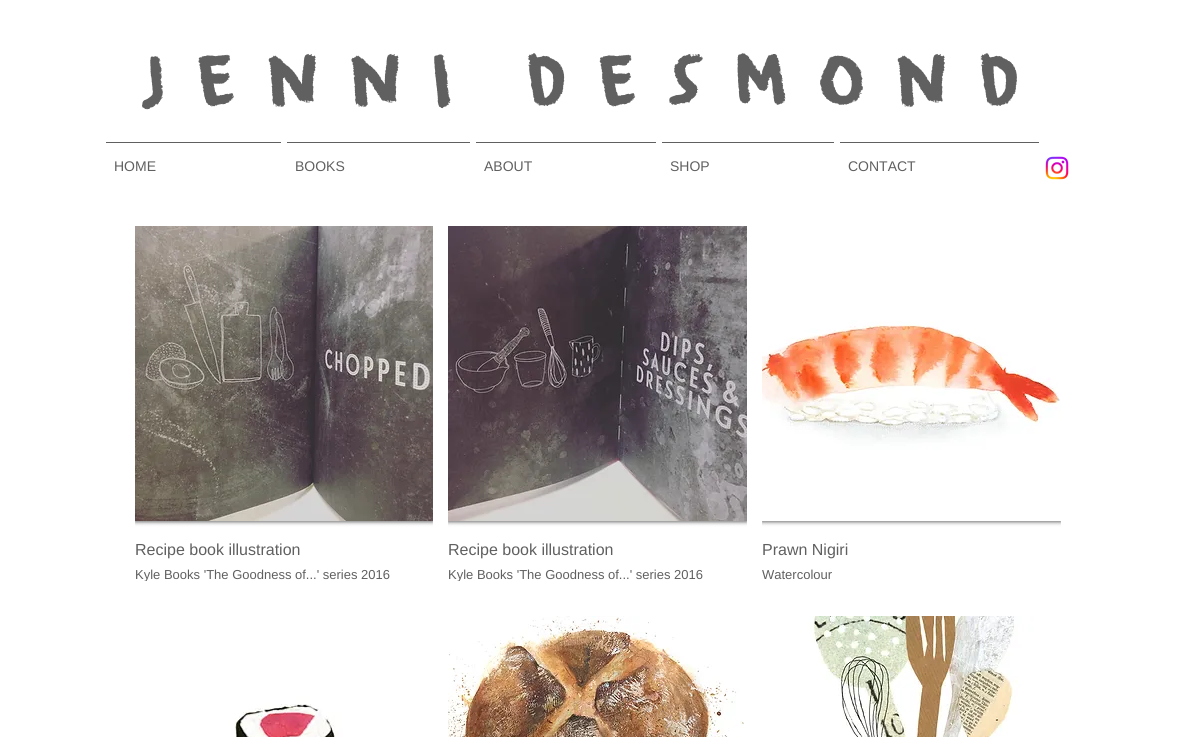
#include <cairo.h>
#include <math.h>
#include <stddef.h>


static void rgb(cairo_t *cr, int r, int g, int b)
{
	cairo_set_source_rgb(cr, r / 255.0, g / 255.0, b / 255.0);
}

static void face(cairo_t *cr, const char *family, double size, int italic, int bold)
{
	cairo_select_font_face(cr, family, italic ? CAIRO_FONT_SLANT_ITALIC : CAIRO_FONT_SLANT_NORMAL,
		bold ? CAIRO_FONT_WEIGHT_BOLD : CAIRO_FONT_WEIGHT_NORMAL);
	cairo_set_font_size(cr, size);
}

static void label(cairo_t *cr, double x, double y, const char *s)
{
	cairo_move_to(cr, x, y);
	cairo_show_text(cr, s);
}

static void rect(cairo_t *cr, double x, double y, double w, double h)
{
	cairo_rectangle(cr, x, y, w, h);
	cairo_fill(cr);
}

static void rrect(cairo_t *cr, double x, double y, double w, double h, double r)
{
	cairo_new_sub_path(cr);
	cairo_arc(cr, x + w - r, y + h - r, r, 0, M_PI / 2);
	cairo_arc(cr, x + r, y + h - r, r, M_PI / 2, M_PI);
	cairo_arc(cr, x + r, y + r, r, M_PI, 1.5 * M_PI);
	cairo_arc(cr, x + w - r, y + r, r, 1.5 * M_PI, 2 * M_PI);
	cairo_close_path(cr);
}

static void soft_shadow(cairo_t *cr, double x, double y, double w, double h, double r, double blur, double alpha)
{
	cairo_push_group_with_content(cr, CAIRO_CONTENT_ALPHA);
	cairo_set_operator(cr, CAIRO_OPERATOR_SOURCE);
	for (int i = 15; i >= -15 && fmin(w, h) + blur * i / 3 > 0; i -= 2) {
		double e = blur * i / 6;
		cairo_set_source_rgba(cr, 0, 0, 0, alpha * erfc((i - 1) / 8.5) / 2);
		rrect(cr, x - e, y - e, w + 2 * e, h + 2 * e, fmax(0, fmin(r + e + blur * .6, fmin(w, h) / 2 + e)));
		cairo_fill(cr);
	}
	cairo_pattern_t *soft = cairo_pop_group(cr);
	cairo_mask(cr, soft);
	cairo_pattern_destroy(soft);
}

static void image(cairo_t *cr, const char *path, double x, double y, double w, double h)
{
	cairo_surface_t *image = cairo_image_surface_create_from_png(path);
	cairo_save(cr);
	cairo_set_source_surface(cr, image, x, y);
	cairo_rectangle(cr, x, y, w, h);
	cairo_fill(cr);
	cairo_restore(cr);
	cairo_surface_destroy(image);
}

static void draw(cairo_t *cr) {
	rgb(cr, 255, 255, 255);
	cairo_paint(cr);
	face(cr, "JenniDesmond", 71, 0, 1);
	rgb(cr, 96, 96, 96);
	label(cr, 125, 105, "JENNI DESMOND");
	rect(cr, 106, 142, 175, 1);
	face(cr, "Liberation Sans", 14, 0, 0);
	label(cr, 114, 171, "HOME");
	rect(cr, 287, 142, 183, 1);
	label(cr, 295, 171, "BOOKS");
	rect(cr, 476, 142, 180, 1);
	label(cr, 484, 171, "ABOUT");
	rect(cr, 662, 142, 172, 1);
	label(cr, 670, 171, "SHOP");
	rect(cr, 840, 142, 199, 1);
	label(cr, 848, 171, "CONTACT");
	image(cr, "image0.png", 1045, 156, 24, 24);
	cairo_save(cr);
	cairo_rectangle(cr, 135, 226, 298, 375);
	cairo_clip(cr);
	rgb(cr, 0, 0, 0);
	soft_shadow(cr, 135, 227, 298, 295, 0, 2, 0.6);
	cairo_restore(cr);
	image(cr, "image1.png", 135, 226, 298, 295);
	face(cr, "Liberation Sans", 16, 0, 0);
	label(cr, 135, 555, "Recipe book illustration");
	cairo_save(cr);
	cairo_rectangle(cr, 135, 566, 298, 15);
	cairo_clip(cr);
	face(cr, "Liberation Sans", 13, 0, 0);
	label(cr, 135, 579, "Kyle Books 'The Goodness of...' series 2016");
	cairo_restore(cr);
	cairo_save(cr);
	cairo_rectangle(cr, 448, 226, 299, 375);
	cairo_clip(cr);
	rgb(cr, 0, 0, 0);
	soft_shadow(cr, 448, 227, 299, 295, 0, 2, 0.6);
	cairo_restore(cr);
	image(cr, "image2.png", 448, 226, 299, 295);
	label(cr, 448, 555, "Recipe book illustration");
	cairo_save(cr);
	cairo_rectangle(cr, 448, 566, 299, 15);
	cairo_clip(cr);
	face(cr, "Liberation Sans", 13, 0, 0);
	label(cr, 448, 579, "Kyle Books 'The Goodness of...' series 2016");
	cairo_restore(cr);
	cairo_save(cr);
	cairo_rectangle(cr, 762, 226, 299, 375);
	cairo_clip(cr);
	rgb(cr, 0, 0, 0);
	soft_shadow(cr, 762, 227, 299, 295, 0, 2, 0.6);
	cairo_restore(cr);
	image(cr, "image3.png", 762, 226, 299, 295);
	label(cr, 762, 555, "Prawn Nigiri");
	face(cr, "Liberation Sans", 13, 0, 0);
	label(cr, 762, 579, "Watercolour");
	image(cr, "image4.png", 135, 616, 298, 121);
	image(cr, "image5.png", 448, 616, 299, 121);
	image(cr, "image6.png", 762, 616, 299, 121);
}

int main(void) {
	cairo_surface_t *surface = cairo_image_surface_create(CAIRO_FORMAT_RGB24, 1183, 737);
	cairo_t *cr = cairo_create(surface);
	cairo_font_options_t *options = cairo_font_options_create();
	cairo_font_options_set_hint_metrics(options, CAIRO_HINT_METRICS_OFF);
	cairo_font_options_set_hint_style(options, CAIRO_HINT_STYLE_NONE);
	cairo_set_font_options(cr, options);
	cairo_set_miter_limit(cr, 4);
	draw(cr);
	cairo_surface_write_to_png(surface, "render.png");
	cairo_font_options_destroy(options);
	cairo_destroy(cr);
	cairo_surface_destroy(surface);
	return 0;
}
